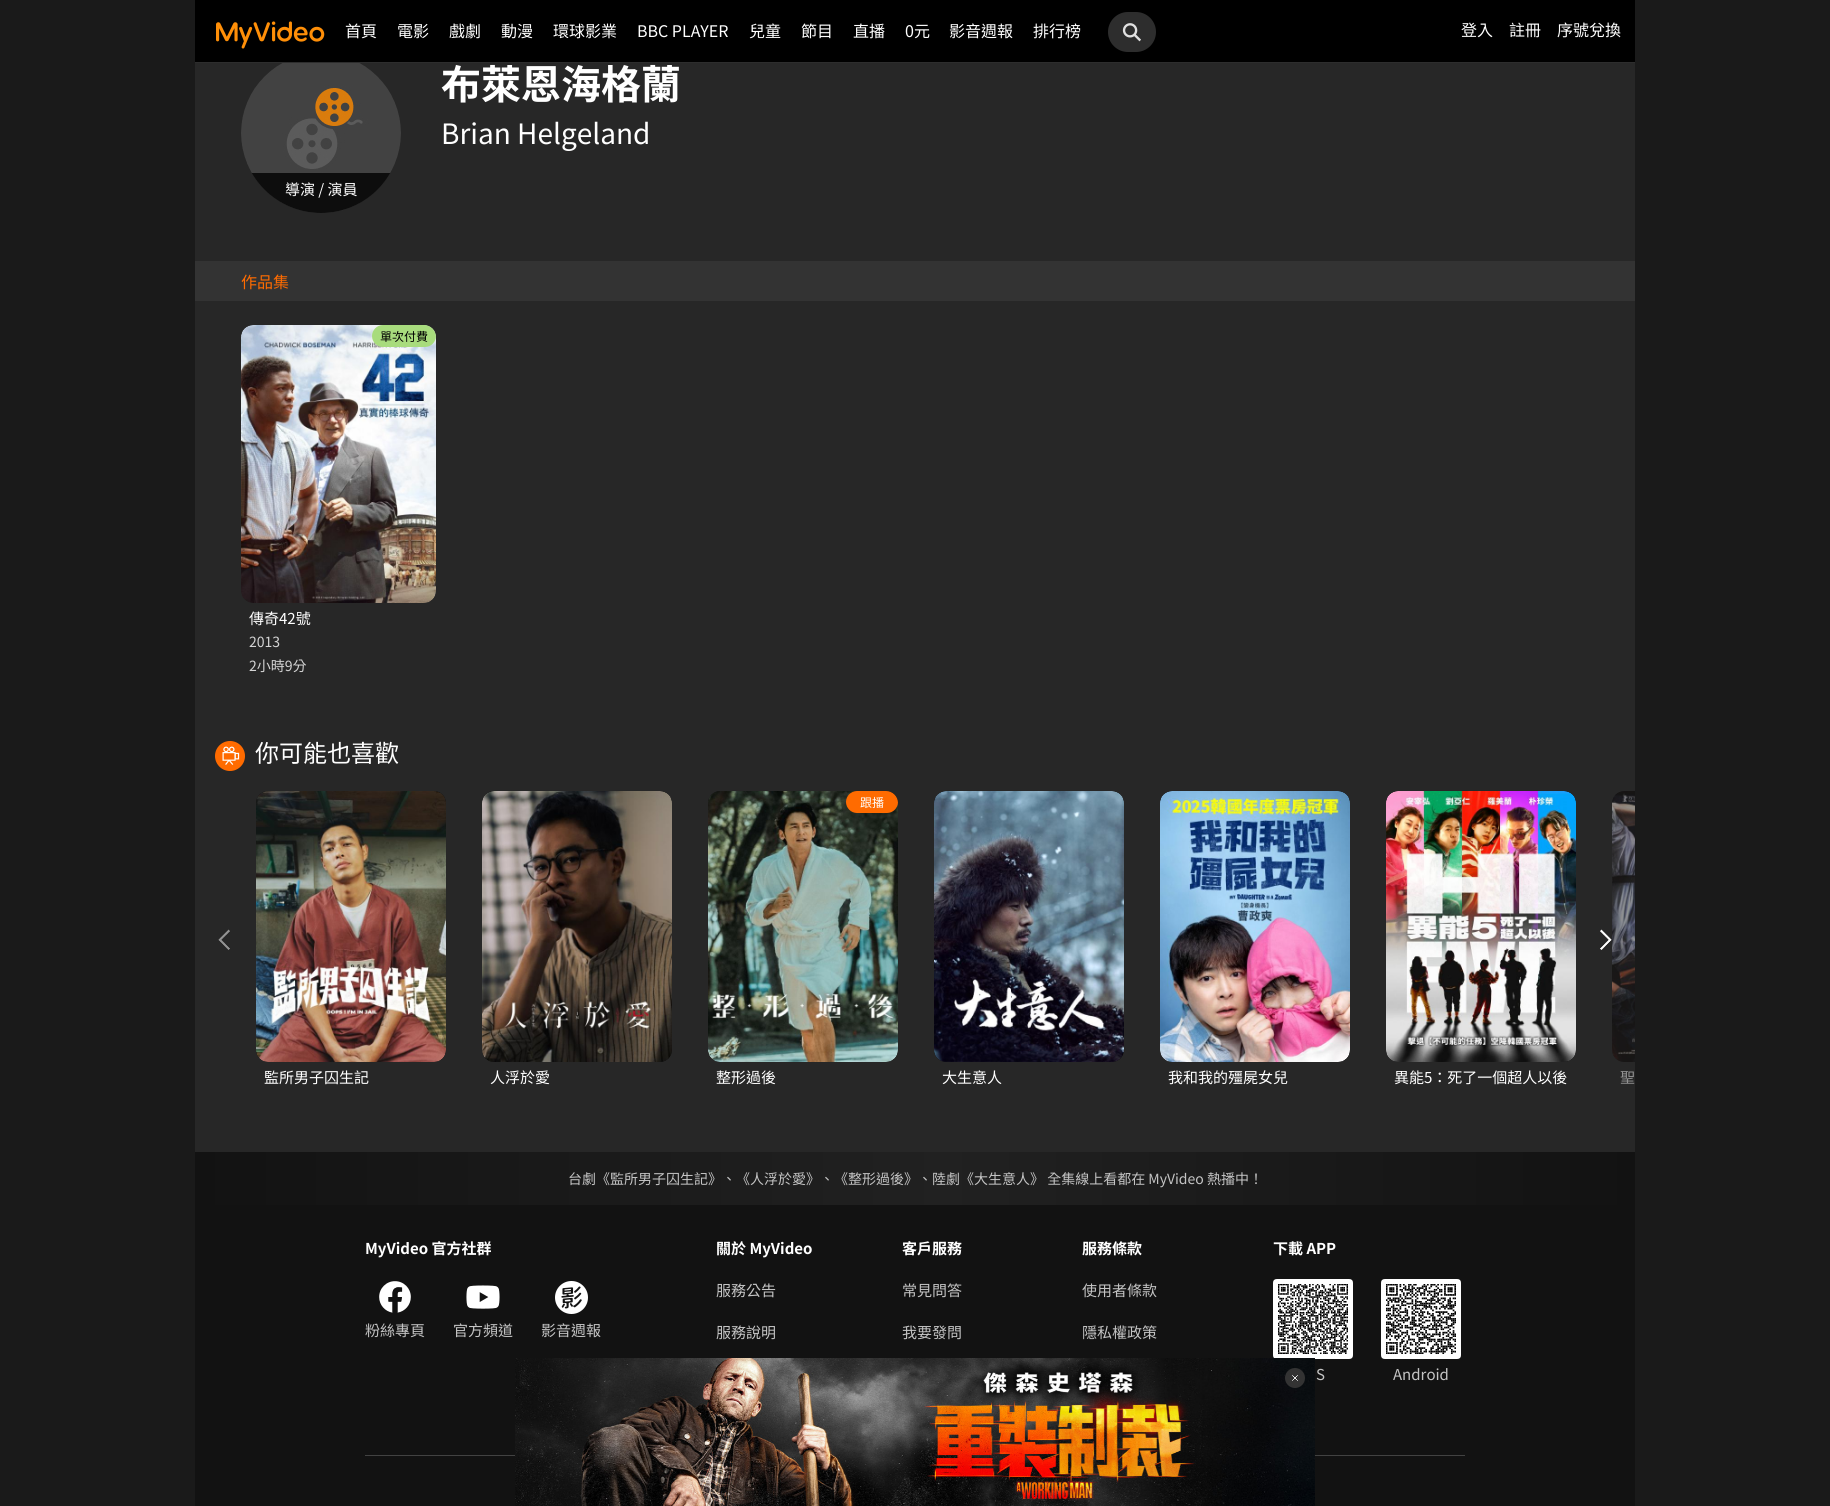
#include <cairo.h>
#include <math.h>
#include <stddef.h>


static void rgb(cairo_t *cr, int r, int g, int b)
{
	cairo_set_source_rgb(cr, r / 255.0, g / 255.0, b / 255.0);
}

static void face(cairo_t *cr, const char *family, double size, int italic, int bold)
{
	cairo_select_font_face(cr, family, italic ? CAIRO_FONT_SLANT_ITALIC : CAIRO_FONT_SLANT_NORMAL,
		bold ? CAIRO_FONT_WEIGHT_BOLD : CAIRO_FONT_WEIGHT_NORMAL);
	cairo_set_font_size(cr, size);
}

static void label(cairo_t *cr, double x, double y, const char *s)
{
	cairo_move_to(cr, x, y);
	cairo_show_text(cr, s);
}

static void rect(cairo_t *cr, double x, double y, double w, double h)
{
	cairo_rectangle(cr, x, y, w, h);
	cairo_fill(cr);
}

static void rrect(cairo_t *cr, double x, double y, double w, double h, double r)
{
	cairo_new_sub_path(cr);
	cairo_arc(cr, x + w - r, y + h - r, r, 0, M_PI / 2);
	cairo_arc(cr, x + r, y + h - r, r, M_PI / 2, M_PI);
	cairo_arc(cr, x + r, y + r, r, M_PI, 1.5 * M_PI);
	cairo_arc(cr, x + w - r, y + r, r, 1.5 * M_PI, 2 * M_PI);
	cairo_close_path(cr);
}

static void image(cairo_t *cr, const char *path, double x, double y, double w, double h)
{
	cairo_surface_t *image = cairo_image_surface_create_from_png(path);
	cairo_save(cr);
	cairo_set_source_surface(cr, image, x, y);
	cairo_rectangle(cr, x, y, w, h);
	cairo_fill(cr);
	cairo_restore(cr);
	cairo_surface_destroy(image);
}

static void draw(cairo_t *cr) {
	cairo_pattern_t *gradient;
	rgb(cr, 26, 26, 26);
	cairo_paint(cr);
	rgb(cr, 0, 0, 0);
	rect(cr, 195, 0, 1440, 62);
	rgb(cr, 45, 45, 45);
	rect(cr, 195, 62, 1440, 1);
	image(cr, "image0.png", 216, 21, 109, 28);
	face(cr, "Noto Sans TC", 16, 0, 0);
	rgb(cr, 255, 255, 255);
	label(cr, 345, 37, "首頁");
	label(cr, 397, 37, "電影");
	label(cr, 449, 37, "戲劇");
	label(cr, 501, 37, "動漫");
	label(cr, 553, 37, "環球影業");
	label(cr, 637, 37, "BBC PLAYER");
	label(cr, 749, 37, "兒童");
	label(cr, 801, 37, "節目");
	label(cr, 853, 37, "直播");
	label(cr, 905, 37, "0元");
	label(cr, 949, 37, "影音週報");
	label(cr, 1033, 37, "排行榜");
	rgb(cr, 45, 45, 45);
	rrect(cr, 1108, 12, 48, 40, 20);
	cairo_fill(cr);
	image(cr, "image1.png", 1122, 23, 19, 19);
	rgb(cr, 255, 255, 255);
	label(cr, 1461, 36, "登入");
	label(cr, 1509, 36, "註冊");
	label(cr, 1557, 36, "序號兌換");
	rgb(cr, 18, 18, 18);
	rect(cr, 195, 1205, 1440, 301);
	image(cr, "image20.png", 1273, 1279, 80, 80);
	rgb(cr, 66, 66, 66);
	rect(cr, 365, 1455, 1100, 1);
	image(cr, "image2.png", 515, 1358, 800, 148);
	rgb(cr, 51, 51, 51);
	cairo_arc(cr, 1295, 1378, 10, 0, 2 * M_PI);
	cairo_fill(cr);
	image(cr, "image3.png", 1292, 1375, 6, 6);
	rgb(cr, 39, 39, 39);
	rect(cr, 195, 63, 1440, 1089);
	face(cr, "Noto Sans TC", 40, 0, 1);
	rgb(cr, 255, 255, 255);
	label(cr, 441, 99, "布萊恩海格蘭");
	face(cr, "Noto Sans TC", 28, 0, 0);
	label(cr, 441, 144, "Brian Helgeland");
	image(cr, "image4.png", 241, 63, 160, 150);
	image(cr, "image5.png", 241, 63, 160, 150);
	cairo_save(cr);
	rrect(cr, 241, 53, 160, 160, 80);
	cairo_clip(cr);
	cairo_set_source_rgba(cr, 0, 0, 0, 0.8);
	rect(cr, 251, 173, 140, 40);
	cairo_restore(cr);
	face(cr, "Noto Sans TC", 15, 0, 0);
	label(cr, 285, 195, "導演 / 演員");
	rgb(cr, 51, 51, 51);
	rect(cr, 195, 261, 1440, 40);
	face(cr, "Noto Sans TC", 16, 0, 0);
	rgb(cr, 255, 107, 0);
	label(cr, 241, 288, "作品集");
	image(cr, "image6.png", 241, 325, 195, 278);
	rgb(cr, 168, 220, 125);
	cairo_new_path(cr);
	cairo_move_to(cr, 383, 325);
	cairo_line_to(cr, 424, 325);
	cairo_curve_to(cr, 430.5, 325, 436, 330.5, 436, 337);
	cairo_line_to(cr, 436, 336);
	cairo_curve_to(cr, 436, 342, 431, 347, 425, 347);
	cairo_line_to(cr, 383, 347);
	cairo_curve_to(cr, 377, 347, 372, 342, 372, 336);
	cairo_curve_to(cr, 372, 330, 377, 325, 383, 325);
	cairo_close_path(cr);
	cairo_fill(cr);
	face(cr, "Noto Sans TC", 12, 0, 0);
	rgb(cr, 0, 0, 0);
	label(cr, 380, 341, "單次付費");
	face(cr, "Noto Sans TC", 15, 0, 0);
	rgb(cr, 255, 255, 255);
	label(cr, 249, 624, "傳奇42號");
	face(cr, "Noto Sans TC", 14, 0, 0);
	rgb(cr, 212, 212, 212);
	label(cr, 249, 647, "2013");
	label(cr, 249, 671, "2小時9分");
	image(cr, "image7.png", 215, 741, 30, 30);
	face(cr, "Noto Sans TC", 24, 0, 0);
	rgb(cr, 255, 255, 255);
	label(cr, 255, 762, "你可能也喜歡");
	image(cr, "image8.png", 218, 929, 12, 21);
	rgb(cr, 18, 18, 18);
	cairo_new_path(cr);
	cairo_move_to(cr, 1624, 791);
	cairo_line_to(cr, 1635, 791);
	cairo_line_to(cr, 1635, 1062);
	cairo_line_to(cr, 1624, 1062);
	cairo_curve_to(cr, 1617.5, 1062, 1612, 1056.5, 1612, 1050);
	cairo_line_to(cr, 1612, 803);
	cairo_curve_to(cr, 1612, 796.5, 1617.5, 791, 1624, 791);
	cairo_close_path(cr);
	cairo_fill(cr);
	image(cr, "image16.png", 1612, 791, 23, 271);
	face(cr, "Noto Sans TC", 15, 0, 0);
	rgb(cr, 255, 255, 255);
	label(cr, 1620, 1083, "聖");
	gradient = cairo_pattern_create_linear(1575, 940, 1635, 940);
	cairo_pattern_add_color_stop_rgba(gradient, 0, 0.153, 0.153, 0.153, 0);
	cairo_pattern_add_color_stop_rgba(gradient, 0.5, 0.153, 0.153, 0.153, 0.5);
	cairo_set_source(cr, gradient);
	cairo_pattern_destroy(gradient);
	rect(cr, 1612, 791, 23, 293);
	image(cr, "image9.png", 1600, 929, 12, 21);
	rgb(cr, 18, 18, 18);
	rrect(cr, 256, 791, 190, 271, 12);
	cairo_fill(cr);
	image(cr, "image10.png", 256, 791, 190, 271);
	rgb(cr, 255, 255, 255);
	label(cr, 264, 1083, "監所男子囚生記");
	rgb(cr, 18, 18, 18);
	rrect(cr, 482, 791, 190, 271, 12);
	cairo_fill(cr);
	image(cr, "image11.png", 482, 791, 190, 271);
	rgb(cr, 255, 255, 255);
	label(cr, 490, 1083, "人浮於愛");
	rgb(cr, 18, 18, 18);
	rrect(cr, 708, 791, 190, 271, 12);
	cairo_fill(cr);
	image(cr, "image12.png", 708, 791, 190, 271);
	rgb(cr, 255, 107, 0);
	cairo_new_path(cr);
	cairo_move_to(cr, 857, 791);
	cairo_line_to(cr, 886, 791);
	cairo_curve_to(cr, 892.5, 791, 898, 796.5, 898, 803);
	cairo_line_to(cr, 898, 802);
	cairo_curve_to(cr, 898, 808, 893, 813, 887, 813);
	cairo_line_to(cr, 857, 813);
	cairo_curve_to(cr, 851, 813, 846, 808, 846, 802);
	cairo_curve_to(cr, 846, 796, 851, 791, 857, 791);
	cairo_close_path(cr);
	cairo_fill(cr);
	face(cr, "Noto Sans TC", 12, 0, 0);
	rgb(cr, 255, 255, 255);
	label(cr, 860, 807, "跟播");
	face(cr, "Noto Sans TC", 15, 0, 0);
	label(cr, 716, 1083, "整形過後");
	rgb(cr, 18, 18, 18);
	rrect(cr, 934, 791, 190, 271, 12);
	cairo_fill(cr);
	image(cr, "image13.png", 934, 791, 190, 271);
	rgb(cr, 255, 255, 255);
	label(cr, 942, 1083, "大生意人");
	rgb(cr, 18, 18, 18);
	rrect(cr, 1160, 791, 190, 271, 12);
	cairo_fill(cr);
	image(cr, "image14.png", 1160, 791, 190, 271);
	rgb(cr, 255, 255, 255);
	label(cr, 1168, 1083, "我和我的殭屍女兒");
	rgb(cr, 18, 18, 18);
	rrect(cr, 1386, 791, 190, 271, 12);
	cairo_fill(cr);
	image(cr, "image15.png", 1386, 791, 190, 271);
	rgb(cr, 255, 255, 255);
	label(cr, 1394, 1083, "異能5：死了一個超人以後");
	gradient = cairo_pattern_create_linear(195, 1179, 1635, 1179);
	cairo_pattern_add_color_stop_rgba(gradient, 0, 0.071, 0.071, 0.071, 1);
	cairo_pattern_add_color_stop_rgba(gradient, 0.52, 0.129, 0.129, 0.129, 1);
	cairo_pattern_add_color_stop_rgba(gradient, 1, 0.071, 0.071, 0.071, 1);
	cairo_set_source(cr, gradient);
	cairo_pattern_destroy(gradient);
	rect(cr, 195, 1152, 1440, 53);
	face(cr, "Noto Sans TC", 14, 0, 0);
	rgb(cr, 196, 196, 196);
	label(cr, 568, 1184, "台劇《監所男子囚生記》、《人浮於愛》、《整形過後》、陸劇《大生意人》 全集線上看都在 MyVideo 熱播中！");
	face(cr, "Noto Sans TC", 15, 0, 1);
	rgb(cr, 255, 255, 255);
	label(cr, 365, 1254, "MyVideo 官方社群");
	image(cr, "image17.png", 379, 1281, 32, 32);
	face(cr, "Noto Sans TC", 15, 0, 0);
	rgb(cr, 196, 196, 196);
	label(cr, 365, 1336, "粉絲專頁");
	image(cr, "image18.png", 466, 1285, 34, 24);
	label(cr, 453, 1336, "官方頻道");
	image(cr, "image19.png", 555, 1281, 33, 33);
	label(cr, 541, 1336, "影音週報");
	face(cr, "Noto Sans TC", 15, 0, 1);
	rgb(cr, 255, 255, 255);
	label(cr, 716, 1254, "關於 MyVideo");
	face(cr, "Noto Sans TC", 15, 0, 0);
	rgb(cr, 196, 196, 196);
	label(cr, 716, 1296, "服務公告");
	label(cr, 716, 1338, "服務說明");
	face(cr, "Noto Sans TC", 15, 0, 1);
	rgb(cr, 255, 255, 255);
	label(cr, 902, 1254, "客戶服務");
	face(cr, "Noto Sans TC", 15, 0, 0);
	rgb(cr, 196, 196, 196);
	label(cr, 902, 1296, "常見問答");
	label(cr, 902, 1338, "我要發問");
	face(cr, "Noto Sans TC", 15, 0, 1);
	rgb(cr, 255, 255, 255);
	label(cr, 1082, 1254, "服務條款");
	face(cr, "Noto Sans TC", 15, 0, 0);
	rgb(cr, 196, 196, 196);
	label(cr, 1082, 1296, "使用者條款");
	label(cr, 1082, 1338, "隱私權政策");
	face(cr, "Noto Sans TC", 15, 0, 1);
	rgb(cr, 255, 255, 255);
	label(cr, 1273, 1254, "下載 APP");
	face(cr, "Noto Sans TC", 15, 0, 0);
	rgb(cr, 196, 196, 196);
	label(cr, 1316, 1380, "S");
	image(cr, "image21.png", 1381, 1279, 80, 80);
	label(cr, 1393, 1380, "Android");
}

int main(void) {
	cairo_surface_t *surface = cairo_image_surface_create(CAIRO_FORMAT_RGB24, 1830, 1506);
	cairo_t *cr = cairo_create(surface);
	cairo_font_options_t *options = cairo_font_options_create();
	cairo_font_options_set_hint_metrics(options, CAIRO_HINT_METRICS_OFF);
	cairo_font_options_set_hint_style(options, CAIRO_HINT_STYLE_NONE);
	cairo_set_font_options(cr, options);
	cairo_set_miter_limit(cr, 4);
	draw(cr);
	cairo_surface_write_to_png(surface, "render.png");
	cairo_font_options_destroy(options);
	cairo_destroy(cr);
	cairo_surface_destroy(surface);
	return 0;
}
